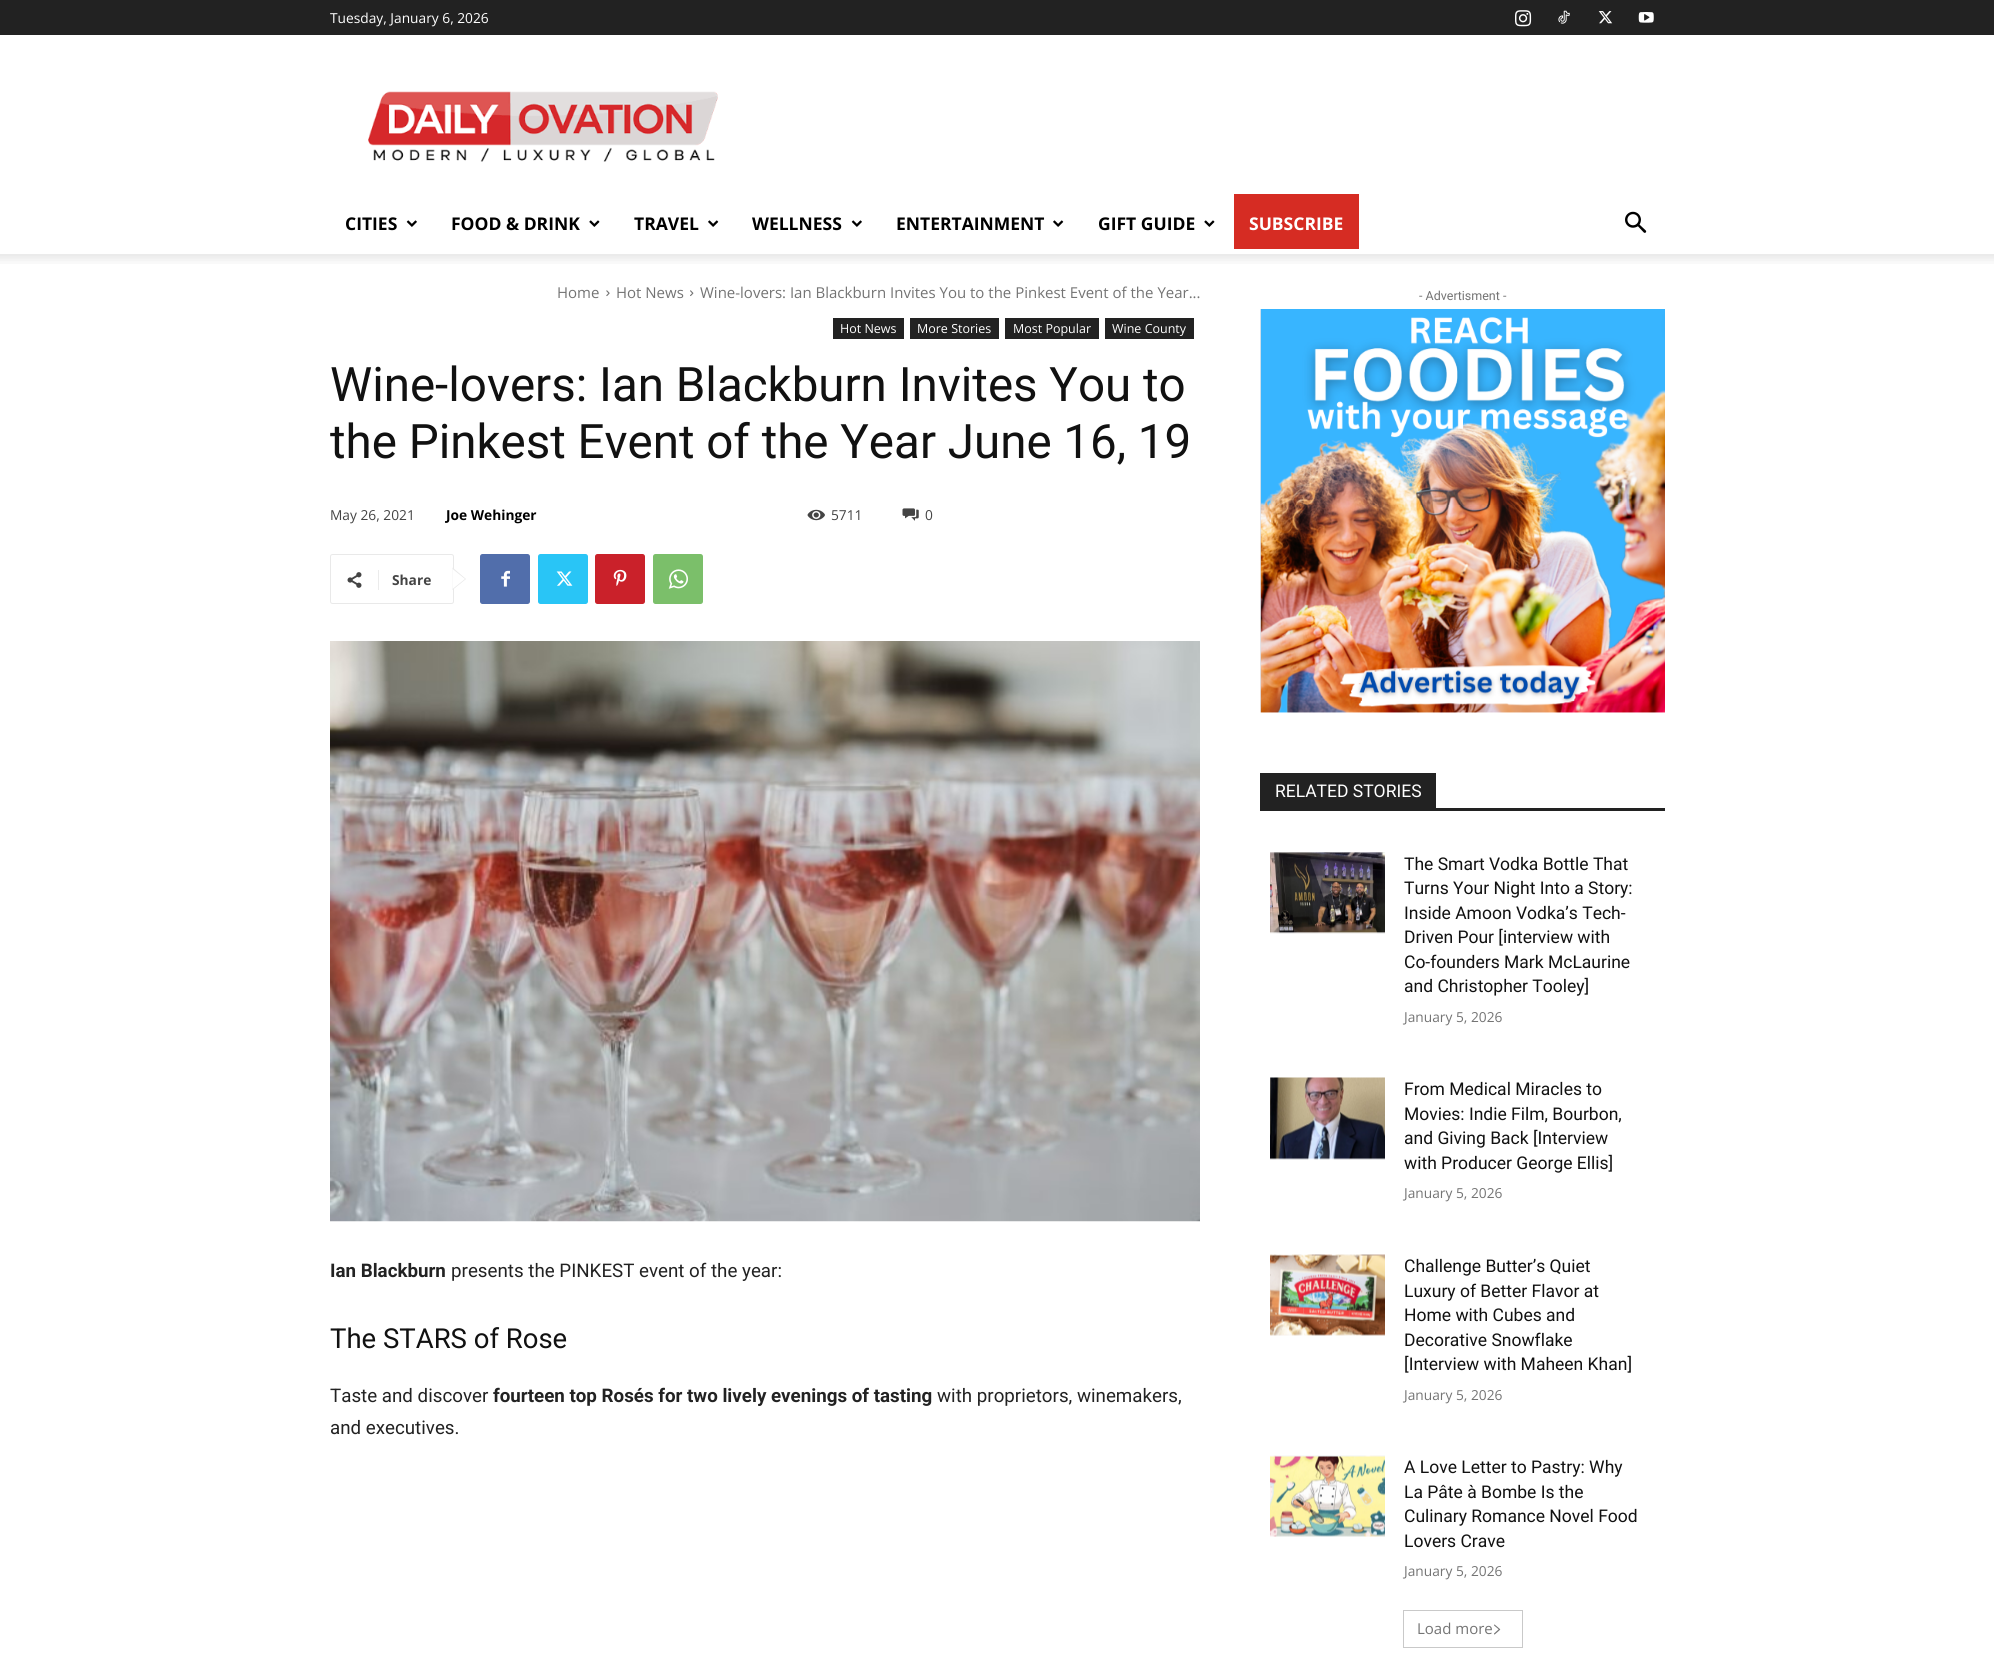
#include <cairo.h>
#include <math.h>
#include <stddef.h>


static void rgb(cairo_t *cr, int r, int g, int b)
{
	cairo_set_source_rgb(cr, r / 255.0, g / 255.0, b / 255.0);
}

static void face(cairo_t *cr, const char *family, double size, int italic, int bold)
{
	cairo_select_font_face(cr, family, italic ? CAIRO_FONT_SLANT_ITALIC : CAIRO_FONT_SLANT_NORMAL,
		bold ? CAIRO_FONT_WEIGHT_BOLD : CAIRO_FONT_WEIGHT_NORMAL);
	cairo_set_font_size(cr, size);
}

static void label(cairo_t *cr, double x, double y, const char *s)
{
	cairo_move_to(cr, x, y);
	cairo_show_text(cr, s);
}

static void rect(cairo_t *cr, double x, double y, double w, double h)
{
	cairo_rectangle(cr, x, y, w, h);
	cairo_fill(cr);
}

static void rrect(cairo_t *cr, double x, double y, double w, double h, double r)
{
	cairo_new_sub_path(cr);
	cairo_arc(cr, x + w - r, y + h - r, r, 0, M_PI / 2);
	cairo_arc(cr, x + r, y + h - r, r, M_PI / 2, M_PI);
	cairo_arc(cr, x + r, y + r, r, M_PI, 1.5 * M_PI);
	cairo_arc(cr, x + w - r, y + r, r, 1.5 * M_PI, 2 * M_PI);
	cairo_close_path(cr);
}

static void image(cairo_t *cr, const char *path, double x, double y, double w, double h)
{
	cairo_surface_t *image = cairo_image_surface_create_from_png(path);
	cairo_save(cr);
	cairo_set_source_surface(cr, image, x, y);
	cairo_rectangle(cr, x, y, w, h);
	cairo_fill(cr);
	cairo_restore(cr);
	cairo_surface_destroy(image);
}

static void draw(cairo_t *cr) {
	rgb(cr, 255, 255, 255);
	cairo_paint(cr);
	rgb(cr, 34, 34, 34);
	rect(cr, 0, 0, 1994, 35);
	face(cr, "Open Sans", 13.75, 0, 0);
	rgb(cr, 255, 255, 255);
	label(cr, 330, 23, "Tuesday, January 6, 2026");
	image(cr, "image0.png", 1515, 10, 17, 17);
	image(cr, "image1.png", 1558, 10, 12, 14);
	image(cr, "image2.png", 1598, 11, 15, 13);
	image(cr, "image3.png", 1638, 12, 16, 11);
	image(cr, "image4.png", 368, 91, 350, 71);
	face(cr, "Open Sans", 17.5, 0, 1);
	rgb(cr, 0, 0, 0);
	label(cr, 345, 230, "CITIES");
	image(cr, "image5.png", 406, 220, 11, 7);
	label(cr, 451, 230, "FOOD & DRINK");
	image(cr, "image6.png", 589, 220, 11, 7);
	label(cr, 634, 230, "TRAVEL");
	image(cr, "image7.png", 708, 220, 11, 7);
	label(cr, 752, 230, "WELLNESS");
	image(cr, "image5.png", 851, 220, 11, 7);
	label(cr, 896, 230, "ENTERTAINMENT");
	image(cr, "image7.png", 1053, 220, 11, 7);
	label(cr, 1098, 230, "GIFT GUIDE");
	image(cr, "image6.png", 1204, 220, 11, 7);
	rgb(cr, 214, 44, 35);
	rect(cr, 1234, 194, 125, 55);
	rgb(cr, 255, 255, 255);
	label(cr, 1249, 230, "SUBSCRIBE");
	image(cr, "image8.png", 1625, 211, 22, 22);
	image(cr, "image9.png", 0, 254, 1994, 10);
	face(cr, "Open Sans", 15, 0, 0);
	rgb(cr, 116, 116, 116);
	label(cr, 557, 298, "Home");
	image(cr, "image10.png", 606, 290, 4, 7);
	label(cr, 616, 298, "Hot News");
	image(cr, "image11.png", 690, 290, 4, 7);
	label(cr, 700, 298, "Wine-lovers: Ian Blackburn Invites You to the Pinkest Event of the Year...");
	rgb(cr, 34, 34, 34);
	rect(cr, 833, 318, 71, 21);
	face(cr, "Open Sans", 12.5, 0, 0);
	rgb(cr, 255, 255, 255);
	label(cr, 840, 333, "Hot News");
	rgb(cr, 34, 34, 34);
	rect(cr, 910, 318, 89, 21);
	rgb(cr, 255, 255, 255);
	label(cr, 917, 333, "More Stories");
	rgb(cr, 34, 34, 34);
	rect(cr, 1005, 318, 94, 21);
	rgb(cr, 255, 255, 255);
	label(cr, 1013, 333, "Most Popular");
	rgb(cr, 34, 34, 34);
	rect(cr, 1105, 318, 89, 21);
	rgb(cr, 255, 255, 255);
	label(cr, 1112, 333, "Wine County");
	face(cr, "Roboto", 47.5, 0, 0);
	rgb(cr, 17, 17, 17);
	label(cr, 330, 401, "Wine-lovers: Ian Blackburn Invites You to");
	label(cr, 330, 458, "the Pinkest Event of the Year June 16, 19");
	face(cr, "Open Sans", 13.75, 0, 0);
	rgb(cr, 68, 68, 68);
	label(cr, 330, 520, "May 26, 2021");
	face(cr, "Open Sans", 13.75, 0, 1);
	rgb(cr, 0, 0, 0);
	label(cr, 446, 520, "Joe Wehinger");
	image(cr, "image12.png", 807, 509, 18, 12);
	face(cr, "Open Sans", 13.75, 0, 0);
	rgb(cr, 68, 68, 68);
	label(cr, 831, 520, "5711");
	image(cr, "image13.png", 902, 508, 17, 13);
	label(cr, 925, 520, "0");
	rrect(cr, 330.5, 554.5, 123, 49, 2);
	rgb(cr, 233, 233, 233);
	cairo_set_line_width(cr, 1);
	cairo_stroke(cr);
	cairo_new_path(cr);
	cairo_move_to(cr, 452.5, 590);
	cairo_line_to(cr, 452.5, 567.5);
	cairo_line_to(cr, 466, 579);
	cairo_close_path(cr);
	cairo_fill(cr);
	image(cr, "image14.png", 347, 572, 15, 16);
	rgb(cr, 235, 235, 235);
	rect(cr, 378, 570, 1, 20);
	face(cr, "Open Sans", 13.75, 0, 1);
	rgb(cr, 68, 68, 68);
	label(cr, 392, 585, "Share");
	rgb(cr, 255, 255, 255);
	cairo_new_path(cr);
	cairo_move_to(cr, 452.5, 589);
	cairo_line_to(cr, 452.5, 569);
	cairo_line_to(cr, 465, 579);
	cairo_close_path(cr);
	cairo_fill(cr);
	rgb(cr, 81, 110, 171);
	rrect(cr, 480, 554, 50, 50, 2.5);
	cairo_fill(cr);
	image(cr, "image15.png", 501, 570, 9, 17);
	rgb(cr, 41, 197, 246);
	rrect(cr, 538, 554, 50, 50, 2.5);
	cairo_fill(cr);
	image(cr, "image16.png", 556, 571, 17, 15);
	rgb(cr, 202, 33, 42);
	rrect(cr, 595, 554, 50, 50, 2.5);
	cairo_fill(cr);
	image(cr, "image17.png", 613, 569, 14, 17);
	rgb(cr, 123, 191, 106);
	rrect(cr, 653, 554, 50, 50, 2.5);
	cairo_fill(cr);
	image(cr, "image18.png", 668, 569, 20, 20);
	image(cr, "image19.png", 330, 641, 870, 581);
	face(cr, "Roboto", 18.75, 0, 1);
	rgb(cr, 34, 34, 34);
	label(cr, 330, 1277, "Ian Blackburn");
	face(cr, "Roboto", 18.75, 0, 0);
	label(cr, 451, 1277, "presents the PINKEST event of the year:");
	face(cr, "Roboto", 27.5, 0, 0);
	rgb(cr, 17, 17, 17);
	label(cr, 330, 1348, "The STARS of Rose");
	face(cr, "Roboto", 18.75, 0, 0);
	rgb(cr, 34, 34, 34);
	label(cr, 330, 1402, "Taste and discover");
	face(cr, "Roboto", 18.75, 0, 1);
	label(cr, 493, 1402, "fourteen top Rosés for two lively evenings of tasting");
	face(cr, "Roboto", 18.75, 0, 0);
	label(cr, 937, 1402, "with proprietors, winemakers,");
	label(cr, 330, 1434, "and executives.");
	face(cr, "Roboto", 12.5, 0, 0);
	rgb(cr, 116, 116, 116);
	label(cr, 1419, 300, "- Advertisment -");
	image(cr, "image20.png", 1260, 309, 405, 404);
	rgb(cr, 34, 34, 34);
	rect(cr, 1260, 808, 405, 3);
	rect(cr, 1260, 773, 176, 35);
	face(cr, "Roboto", 17.5, 0, 0);
	rgb(cr, 255, 255, 255);
	label(cr, 1275, 797, "RELATED STORIES");
	image(cr, "image21.png", 1270, 852, 115, 82);
	rgb(cr, 17, 17, 17);
	label(cr, 1404, 870, "The Smart Vodka Bottle That");
	label(cr, 1404, 894, "Turns Your Night Into a Story:");
	label(cr, 1404, 919, "Inside Amoon Vodka’s Tech-");
	label(cr, 1404, 943, "Driven Pour [interview with");
	label(cr, 1404, 968, "Co-founders Mark McLaurine");
	label(cr, 1404, 992, "and Christopher Tooley]");
	face(cr, "Open Sans", 13.75, 0, 0);
	rgb(cr, 116, 116, 116);
	label(cr, 1404, 1022, "January 5, 2026");
	image(cr, "image22.png", 1270, 1077, 115, 83);
	face(cr, "Roboto", 17.5, 0, 0);
	rgb(cr, 17, 17, 17);
	label(cr, 1404, 1095, "From Medical Miracles to");
	label(cr, 1404, 1120, "Movies: Indie Film, Bourbon,");
	label(cr, 1404, 1144, "and Giving Back [Interview");
	label(cr, 1404, 1169, "with Producer George Ellis]");
	face(cr, "Open Sans", 13.75, 0, 0);
	rgb(cr, 116, 116, 116);
	label(cr, 1404, 1198, "January 5, 2026");
	image(cr, "image23.png", 1270, 1254, 115, 82);
	face(cr, "Roboto", 17.5, 0, 0);
	rgb(cr, 17, 17, 17);
	label(cr, 1404, 1272, "Challenge Butter’s Quiet");
	label(cr, 1404, 1297, "Luxury of Better Flavor at");
	label(cr, 1404, 1321, "Home with Cubes and");
	label(cr, 1404, 1346, "Decorative Snowflake");
	label(cr, 1404, 1370, "[Interview with Maheen Khan]");
	face(cr, "Open Sans", 13.75, 0, 0);
	rgb(cr, 116, 116, 116);
	label(cr, 1404, 1400, "January 5, 2026");
	image(cr, "image24.png", 1270, 1455, 115, 82);
	face(cr, "Roboto", 17.5, 0, 0);
	rgb(cr, 17, 17, 17);
	label(cr, 1404, 1473, "A Love Letter to Pastry: Why");
	label(cr, 1404, 1498, "La Pâte à Bombe Is the");
	label(cr, 1404, 1522, "Culinary Romance Novel Food");
	label(cr, 1404, 1547, "Lovers Crave");
	face(cr, "Open Sans", 13.75, 0, 0);
	rgb(cr, 116, 116, 116);
	label(cr, 1404, 1576, "January 5, 2026");
	cairo_rectangle(cr, 1403.5, 1610.5, 119, 37);
	rgb(cr, 201, 201, 201);
	cairo_stroke(cr);
	face(cr, "Open Sans", 15, 0, 0);
	rgb(cr, 116, 116, 116);
	label(cr, 1417, 1634, "Load more");
	image(cr, "image25.png", 1494, 1624, 7, 11);
}

int main(void) {
	cairo_surface_t *surface = cairo_image_surface_create(CAIRO_FORMAT_RGB24, 1994, 1672);
	cairo_t *cr = cairo_create(surface);
	cairo_font_options_t *options = cairo_font_options_create();
	cairo_font_options_set_hint_metrics(options, CAIRO_HINT_METRICS_OFF);
	cairo_font_options_set_hint_style(options, CAIRO_HINT_STYLE_NONE);
	cairo_set_font_options(cr, options);
	cairo_set_miter_limit(cr, 4);
	draw(cr);
	cairo_surface_write_to_png(surface, "render.png");
	cairo_font_options_destroy(options);
	cairo_destroy(cr);
	cairo_surface_destroy(surface);
	return 0;
}
